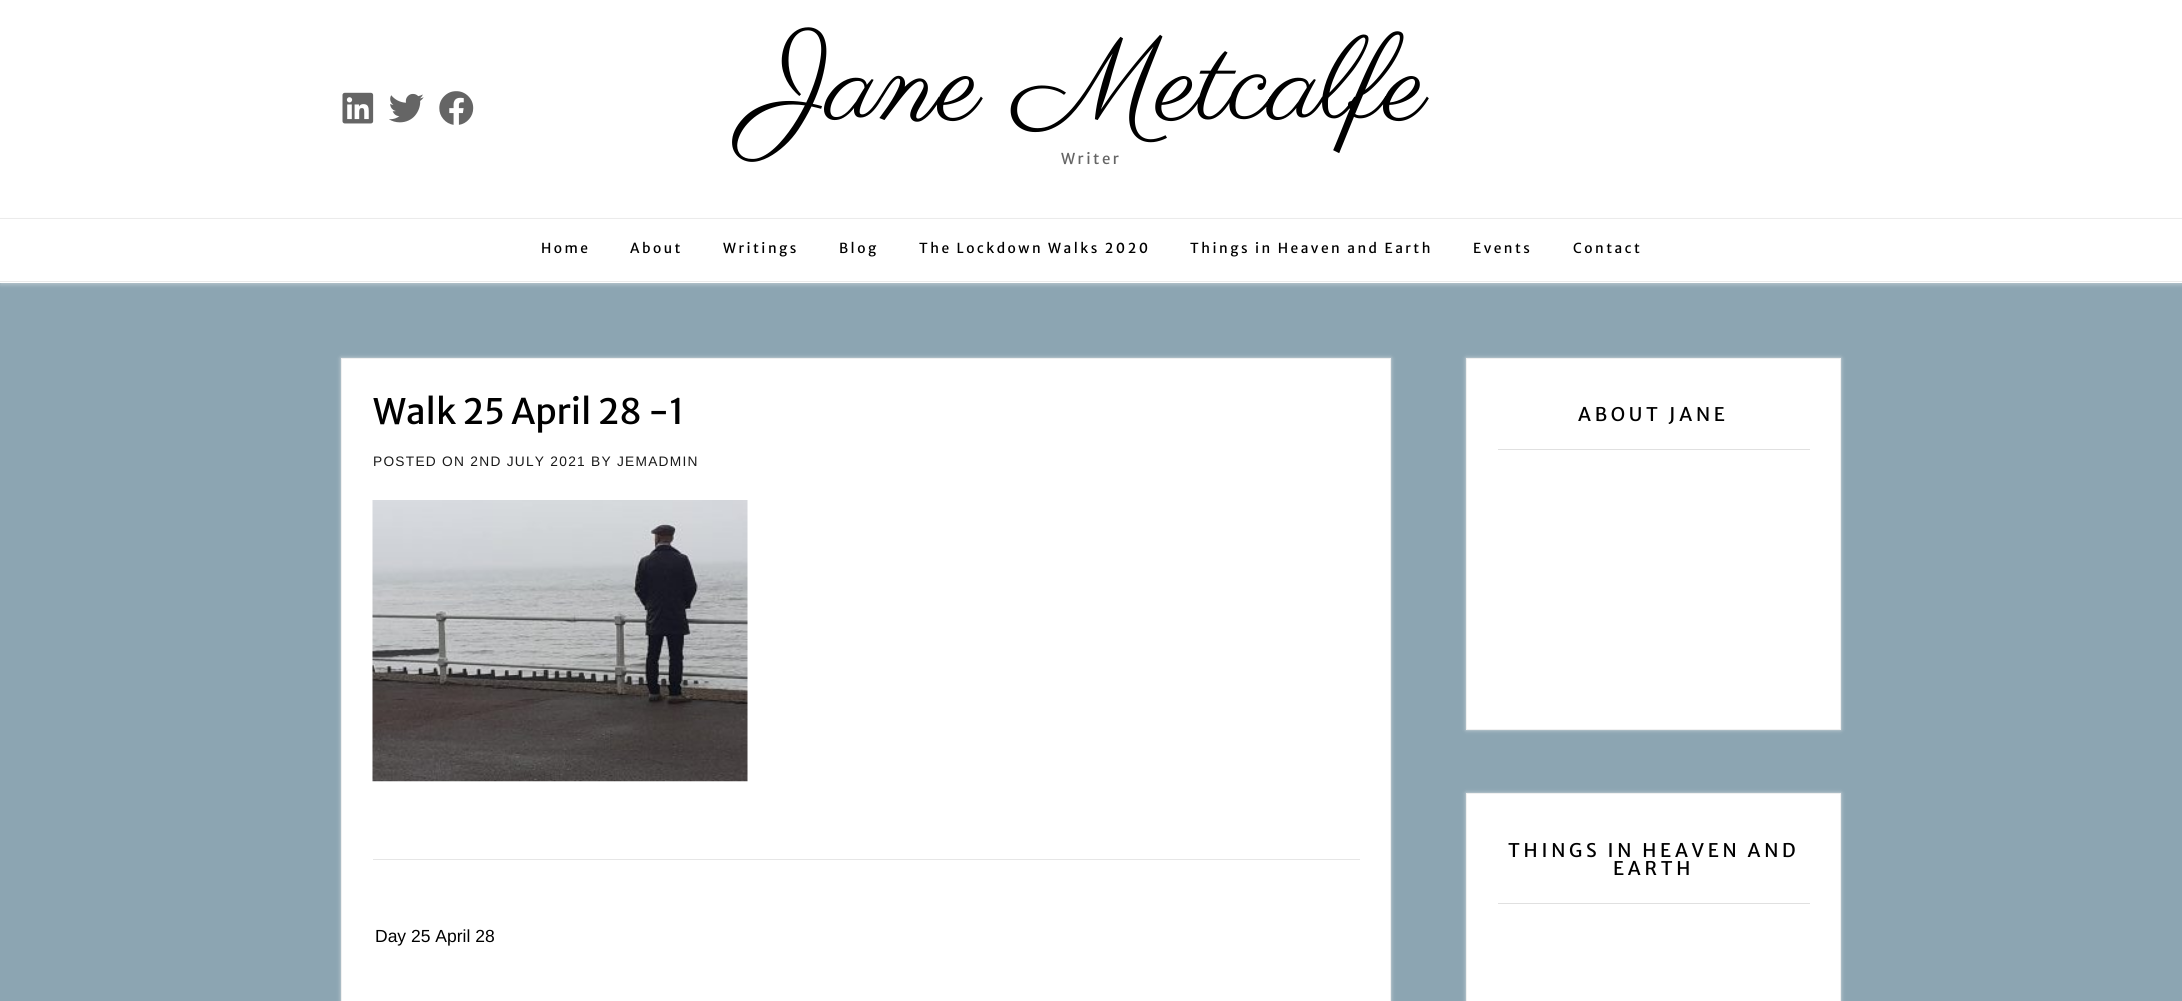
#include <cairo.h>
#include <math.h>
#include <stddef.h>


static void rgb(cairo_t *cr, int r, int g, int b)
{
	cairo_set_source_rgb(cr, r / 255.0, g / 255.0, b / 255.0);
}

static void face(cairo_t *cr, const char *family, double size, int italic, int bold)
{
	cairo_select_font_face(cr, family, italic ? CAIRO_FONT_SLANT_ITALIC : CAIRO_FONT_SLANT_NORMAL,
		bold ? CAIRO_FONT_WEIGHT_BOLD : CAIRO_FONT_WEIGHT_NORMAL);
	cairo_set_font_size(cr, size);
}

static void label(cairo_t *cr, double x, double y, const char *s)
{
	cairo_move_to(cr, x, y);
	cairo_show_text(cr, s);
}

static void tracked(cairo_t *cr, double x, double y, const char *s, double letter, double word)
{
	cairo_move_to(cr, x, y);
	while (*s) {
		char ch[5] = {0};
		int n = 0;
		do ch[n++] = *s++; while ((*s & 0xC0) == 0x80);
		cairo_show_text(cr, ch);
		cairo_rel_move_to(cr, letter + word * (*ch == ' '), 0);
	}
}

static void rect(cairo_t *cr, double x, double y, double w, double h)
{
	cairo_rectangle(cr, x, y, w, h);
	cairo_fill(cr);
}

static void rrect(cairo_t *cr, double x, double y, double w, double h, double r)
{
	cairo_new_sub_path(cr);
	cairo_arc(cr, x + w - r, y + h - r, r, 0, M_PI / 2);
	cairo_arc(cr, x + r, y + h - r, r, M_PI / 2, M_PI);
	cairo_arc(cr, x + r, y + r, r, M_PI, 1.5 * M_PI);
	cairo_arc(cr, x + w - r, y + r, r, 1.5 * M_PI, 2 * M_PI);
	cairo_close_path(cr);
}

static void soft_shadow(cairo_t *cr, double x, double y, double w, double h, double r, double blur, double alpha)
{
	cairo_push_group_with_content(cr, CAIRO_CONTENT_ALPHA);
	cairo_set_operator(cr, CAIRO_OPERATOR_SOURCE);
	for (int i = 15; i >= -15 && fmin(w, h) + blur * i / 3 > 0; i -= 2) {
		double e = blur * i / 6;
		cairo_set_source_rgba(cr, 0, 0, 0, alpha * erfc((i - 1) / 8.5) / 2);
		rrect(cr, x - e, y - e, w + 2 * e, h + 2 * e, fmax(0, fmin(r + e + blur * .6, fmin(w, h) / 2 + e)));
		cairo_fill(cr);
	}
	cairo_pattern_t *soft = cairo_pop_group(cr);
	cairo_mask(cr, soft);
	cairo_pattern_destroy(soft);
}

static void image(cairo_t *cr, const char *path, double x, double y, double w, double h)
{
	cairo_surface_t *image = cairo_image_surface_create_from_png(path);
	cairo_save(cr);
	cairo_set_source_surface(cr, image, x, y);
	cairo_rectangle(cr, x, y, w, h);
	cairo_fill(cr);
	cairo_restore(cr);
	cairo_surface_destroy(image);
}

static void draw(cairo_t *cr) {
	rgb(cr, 140, 165, 178);
	cairo_paint(cr);
	rgb(cr, 255, 255, 255);
	rect(cr, 0, 0, 2182, 218);
	image(cr, "image0.png", 342, 92, 32, 32);
	image(cr, "image1.png", 389, 93, 35, 30);
	image(cr, "image2.png", 439, 91, 35, 34);
	face(cr, "Parisienne", 117.5, 0, 0);
	rgb(cr, 0, 0, 0);
	label(cr, 755, 118, "Jane Metcalfe");
	face(cr, "Merriweather Sans", 15, 0, 0);
	rgb(cr, 101, 101, 101);
	tracked(cr, 1061, 164, "Writer", 2.5, 0);
	rgb(cr, 238, 238, 238);
	soft_shadow(cr, 0, 220, 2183, 65, 0, 2, 0.4);
	rgb(cr, 255, 255, 255);
	rect(cr, 0, 219, 2182, 64);
	rgb(cr, 235, 235, 235);
	rect(cr, 0, 218, 2182, 1);
	rect(cr, 0, 281, 2182, 1);
	face(cr, "Merriweather Sans", 13.75, 0, 0);
	rgb(cr, 0, 0, 0);
	tracked(cr, 541, 253, "Home", 2.5, 0);
	tracked(cr, 630, 253, "About", 2.5, 0);
	tracked(cr, 723, 253, "Writings", 2.5, 0);
	tracked(cr, 839, 253, "Blog", 2.5, 0);
	tracked(cr, 919, 253, "The Lockdown Walks 2020", 2.5, 0);
	tracked(cr, 1190, 253, "Things in Heaven and Earth", 2.5, 0);
	tracked(cr, 1473, 253, "Events", 2.5, 0);
	tracked(cr, 1573, 253, "Contact", 2.5, 0);
	rgb(cr, 238, 238, 238);
	soft_shadow(cr, 341, 358, 1050, 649, 0, 2, 0.72);
	rgb(cr, 255, 255, 255);
	cairo_rectangle(cr, 341.5, 358.5, 1049, 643);
	cairo_fill_preserve(cr);
	rgb(cr, 240, 240, 240);
	cairo_set_line_width(cr, 1);
	cairo_stroke(cr);
	rgb(cr, 230, 230, 230);
	rect(cr, 373, 859, 987, 1);
	face(cr, "Merriweather Sans", 35, 0, 0);
	rgb(cr, 0, 0, 0);
	label(cr, 373, 424, "Walk 25 April 28 -1");
	face(cr, "Liberation Sans", 13.75, 0, 0);
	rgb(cr, 26, 26, 26);
	tracked(cr, 373, 466, "POSTED ON 2ND JULY 2021 BY JEMADMIN", 1.25, 0);
	image(cr, "image3.png", 372, 500, 376, 282);
	face(cr, "Liberation Sans", 17.5, 0, 0);
	rgb(cr, 0, 0, 0);
	label(cr, 375, 942, "Day 25 April 28");
	rgb(cr, 238, 238, 238);
	soft_shadow(cr, 1466, 358, 375, 372, 0, 2, 0.72);
	rgb(cr, 255, 255, 255);
	cairo_rectangle(cr, 1466.5, 358.5, 374, 371);
	cairo_fill_preserve(cr);
	rgb(cr, 240, 240, 240);
	cairo_stroke(cr);
	rgb(cr, 224, 224, 224);
	rect(cr, 1498, 449, 312, 1);
	face(cr, "Merriweather Sans", 18.75, 0, 0);
	rgb(cr, 0, 0, 0);
	tracked(cr, 1578, 421, "ABOUT JANE", 3.75, 0);
	rgb(cr, 238, 238, 238);
	soft_shadow(cr, 1466, 793, 375, 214, 0, 2, 0.72);
	rgb(cr, 255, 255, 255);
	cairo_rectangle(cr, 1466.5, 793.5, 374, 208);
	cairo_fill_preserve(cr);
	rgb(cr, 240, 240, 240);
	cairo_stroke(cr);
	rgb(cr, 224, 224, 224);
	rect(cr, 1498, 903, 312, 1);
	rgb(cr, 0, 0, 0);
	tracked(cr, 1508, 857, "THINGS IN HEAVEN AND", 3.75, 0);
	tracked(cr, 1613, 875, "EARTH", 3.75, 0);
}

int main(void) {
	cairo_surface_t *surface = cairo_image_surface_create(CAIRO_FORMAT_RGB24, 2182, 1001);
	cairo_t *cr = cairo_create(surface);
	cairo_font_options_t *options = cairo_font_options_create();
	cairo_font_options_set_hint_metrics(options, CAIRO_HINT_METRICS_OFF);
	cairo_font_options_set_hint_style(options, CAIRO_HINT_STYLE_NONE);
	cairo_set_font_options(cr, options);
	cairo_set_miter_limit(cr, 4);
	draw(cr);
	cairo_surface_write_to_png(surface, "render.png");
	cairo_font_options_destroy(options);
	cairo_destroy(cr);
	cairo_surface_destroy(surface);
	return 0;
}
